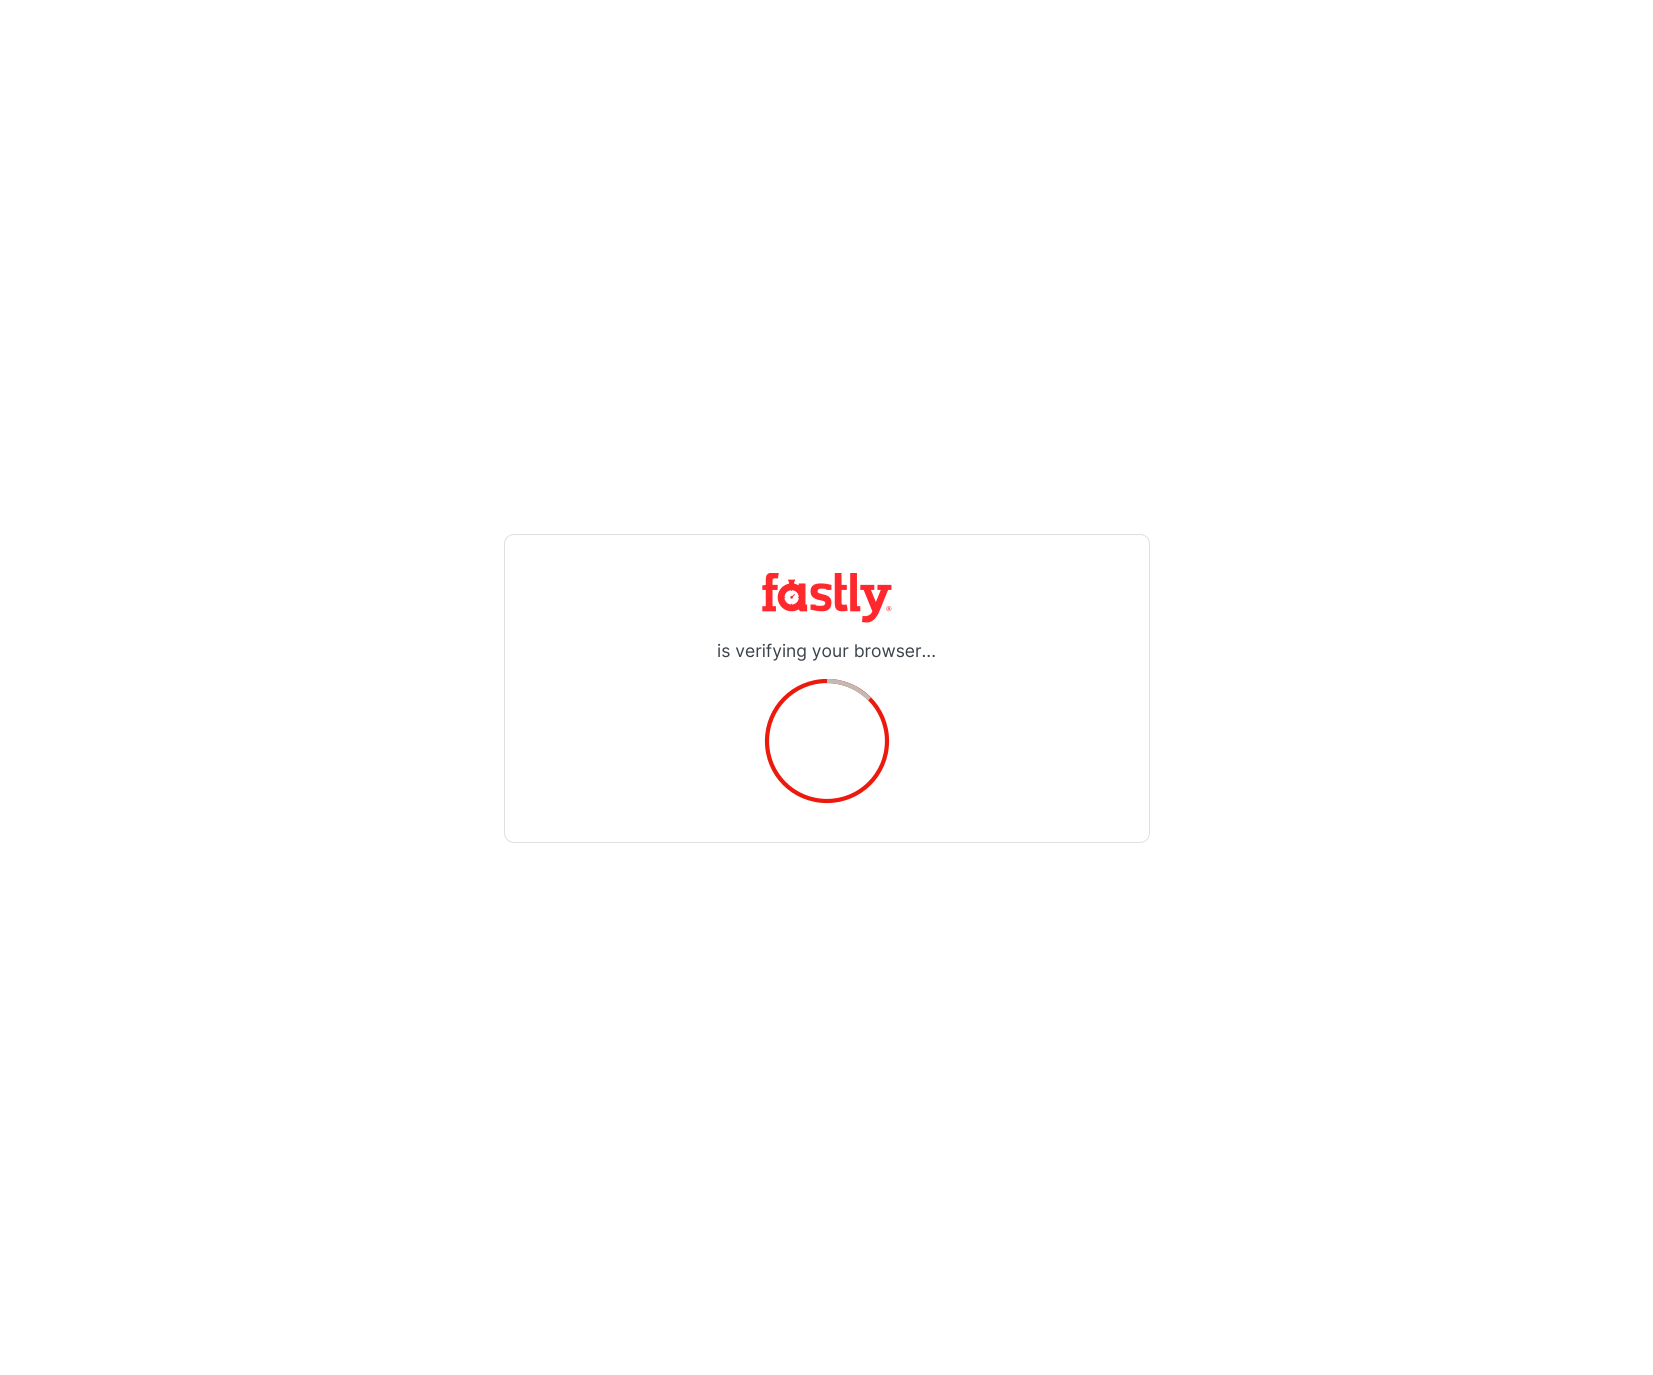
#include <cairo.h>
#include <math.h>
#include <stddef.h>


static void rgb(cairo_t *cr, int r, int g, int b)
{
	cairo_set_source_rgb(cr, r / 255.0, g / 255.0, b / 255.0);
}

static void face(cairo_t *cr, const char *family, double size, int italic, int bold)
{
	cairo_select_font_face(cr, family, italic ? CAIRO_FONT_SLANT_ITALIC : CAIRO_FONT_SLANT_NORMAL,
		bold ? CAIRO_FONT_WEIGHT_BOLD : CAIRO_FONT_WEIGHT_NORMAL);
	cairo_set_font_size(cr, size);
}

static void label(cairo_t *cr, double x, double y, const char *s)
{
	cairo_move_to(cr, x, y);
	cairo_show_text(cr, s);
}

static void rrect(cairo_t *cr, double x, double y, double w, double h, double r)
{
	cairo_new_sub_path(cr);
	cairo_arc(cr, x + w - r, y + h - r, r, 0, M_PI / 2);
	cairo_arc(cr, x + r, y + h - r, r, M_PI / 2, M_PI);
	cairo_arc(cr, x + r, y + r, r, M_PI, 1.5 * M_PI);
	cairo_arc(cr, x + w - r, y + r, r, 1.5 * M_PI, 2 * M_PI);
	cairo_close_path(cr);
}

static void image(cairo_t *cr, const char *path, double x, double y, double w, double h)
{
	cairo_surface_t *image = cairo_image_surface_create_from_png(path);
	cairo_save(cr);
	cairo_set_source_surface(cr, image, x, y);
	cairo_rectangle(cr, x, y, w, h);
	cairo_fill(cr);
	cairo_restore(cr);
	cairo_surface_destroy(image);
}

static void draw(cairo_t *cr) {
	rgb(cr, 255, 255, 255);
	cairo_paint(cr);
	rrect(cr, 504.5, 534.5, 645, 308, 9.5);
	rgb(cr, 220, 224, 228);
	cairo_set_line_width(cr, 1);
	cairo_stroke(cr);
	image(cr, "image0.png", 762, 573, 130, 50);
	face(cr, "Inter", 17.5, 0, 0);
	rgb(cr, 58, 66, 74);
	label(cr, 717, 657, "is verifying your browser...");
	cairo_save(cr);
	cairo_rectangle(cr, 543, 679, 568, 125);
	cairo_clip(cr);
	cairo_new_path(cr);
	cairo_move_to(cr, 767, 741);
	cairo_curve_to(cr, 767, 708, 793.5, 681, 827, 681);
	cairo_curve_to(cr, 860, 681, 887, 708, 887, 741);
	cairo_curve_to(cr, 887, 774.5, 860, 801, 827, 801);
	cairo_curve_to(cr, 793.5, 801, 767, 774.5, 767, 741);
	cairo_close_path(cr);
	rgb(cr, 235, 26, 12);
	cairo_set_line_width(cr, 4.2);
	cairo_stroke(cr);
	cairo_restore(cr);
	cairo_new_path(cr);
	cairo_move_to(cr, 869.5, 699);
	cairo_curve_to(cr, 858, 687.5, 843, 681, 827, 681);
	rgb(cr, 194, 186, 181);
	cairo_set_line_width(cr, 4.2);
	cairo_stroke(cr);
}

int main(void) {
	cairo_surface_t *surface = cairo_image_surface_create(CAIRO_FORMAT_RGB24, 1653, 1375);
	cairo_t *cr = cairo_create(surface);
	cairo_font_options_t *options = cairo_font_options_create();
	cairo_font_options_set_hint_metrics(options, CAIRO_HINT_METRICS_OFF);
	cairo_font_options_set_hint_style(options, CAIRO_HINT_STYLE_NONE);
	cairo_set_font_options(cr, options);
	cairo_set_miter_limit(cr, 4);
	draw(cr);
	cairo_surface_write_to_png(surface, "render.png");
	cairo_font_options_destroy(options);
	cairo_destroy(cr);
	cairo_surface_destroy(surface);
	return 0;
}
